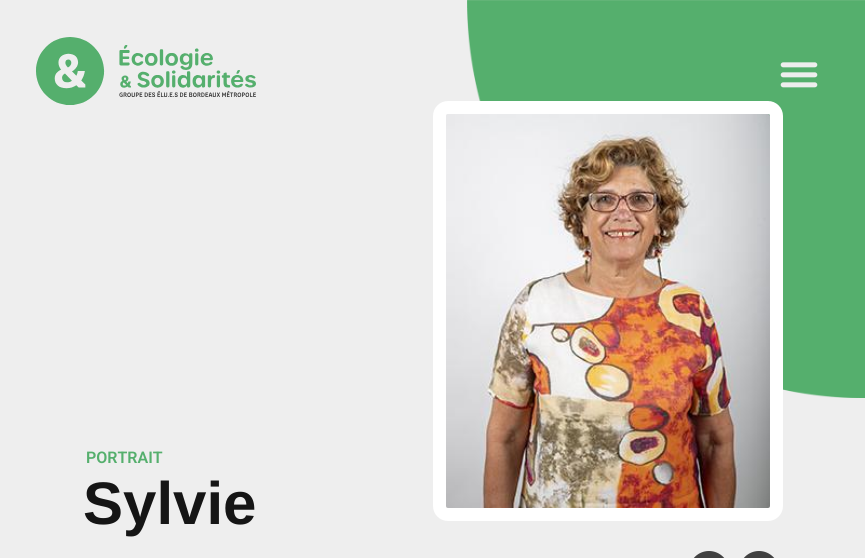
#include <cairo.h>
#include <math.h>
#include <stddef.h>


static void rgb(cairo_t *cr, int r, int g, int b)
{
	cairo_set_source_rgb(cr, r / 255.0, g / 255.0, b / 255.0);
}

static void face(cairo_t *cr, const char *family, double size, int italic, int bold)
{
	cairo_select_font_face(cr, family, italic ? CAIRO_FONT_SLANT_ITALIC : CAIRO_FONT_SLANT_NORMAL,
		bold ? CAIRO_FONT_WEIGHT_BOLD : CAIRO_FONT_WEIGHT_NORMAL);
	cairo_set_font_size(cr, size);
}

static void label(cairo_t *cr, double x, double y, const char *s)
{
	cairo_move_to(cr, x, y);
	cairo_show_text(cr, s);
}

static void rrect(cairo_t *cr, double x, double y, double w, double h, double r)
{
	cairo_new_sub_path(cr);
	cairo_arc(cr, x + w - r, y + h - r, r, 0, M_PI / 2);
	cairo_arc(cr, x + r, y + h - r, r, M_PI / 2, M_PI);
	cairo_arc(cr, x + r, y + r, r, M_PI, 1.5 * M_PI);
	cairo_arc(cr, x + w - r, y + r, r, 1.5 * M_PI, 2 * M_PI);
	cairo_close_path(cr);
}

static void image(cairo_t *cr, const char *path, double x, double y, double w, double h)
{
	cairo_surface_t *image = cairo_image_surface_create_from_png(path);
	cairo_save(cr);
	cairo_set_source_surface(cr, image, x, y);
	cairo_rectangle(cr, x, y, w, h);
	cairo_fill(cr);
	cairo_restore(cr);
	cairo_surface_destroy(image);
}

static void draw(cairo_t *cr) {
	rgb(cr, 238, 238, 238);
	cairo_paint(cr);
	image(cr, "image0.png", 467, 0, 398, 398);
	image(cr, "image1.png", 36, 37, 220, 68);
	image(cr, "image2.png", 780, 62, 38, 26);
	face(cr, "Roboto SemiBold", 16, 0, 0);
	rgb(cr, 85, 175, 109);
	label(cr, 86, 463, "PORTRAIT");
	face(cr, "Liberation Sans", 60, 0, 1);
	rgb(cr, 21, 21, 21);
	label(cr, 83, 524, "Sylvie");
	rrect(cr, 439.5, 107.5, 337, 407, 8.5);
	rgb(cr, 255, 255, 255);
	cairo_set_line_width(cr, 13);
	cairo_stroke(cr);
	image(cr, "image3.png", 446, 114, 324, 394);
	rgb(cr, 64, 64, 64);
	rrect(cr, 689, 551, 40, 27, 20);
	cairo_fill(cr);
	rrect(cr, 739, 551, 40, 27, 20);
	cairo_fill(cr);
}

int main(void) {
	cairo_surface_t *surface = cairo_image_surface_create(CAIRO_FORMAT_RGB24, 865, 558);
	cairo_t *cr = cairo_create(surface);
	cairo_font_options_t *options = cairo_font_options_create();
	cairo_font_options_set_hint_metrics(options, CAIRO_HINT_METRICS_OFF);
	cairo_font_options_set_hint_style(options, CAIRO_HINT_STYLE_NONE);
	cairo_set_font_options(cr, options);
	cairo_set_miter_limit(cr, 4);
	draw(cr);
	cairo_surface_write_to_png(surface, "render.png");
	cairo_font_options_destroy(options);
	cairo_destroy(cr);
	cairo_surface_destroy(surface);
	return 0;
}
